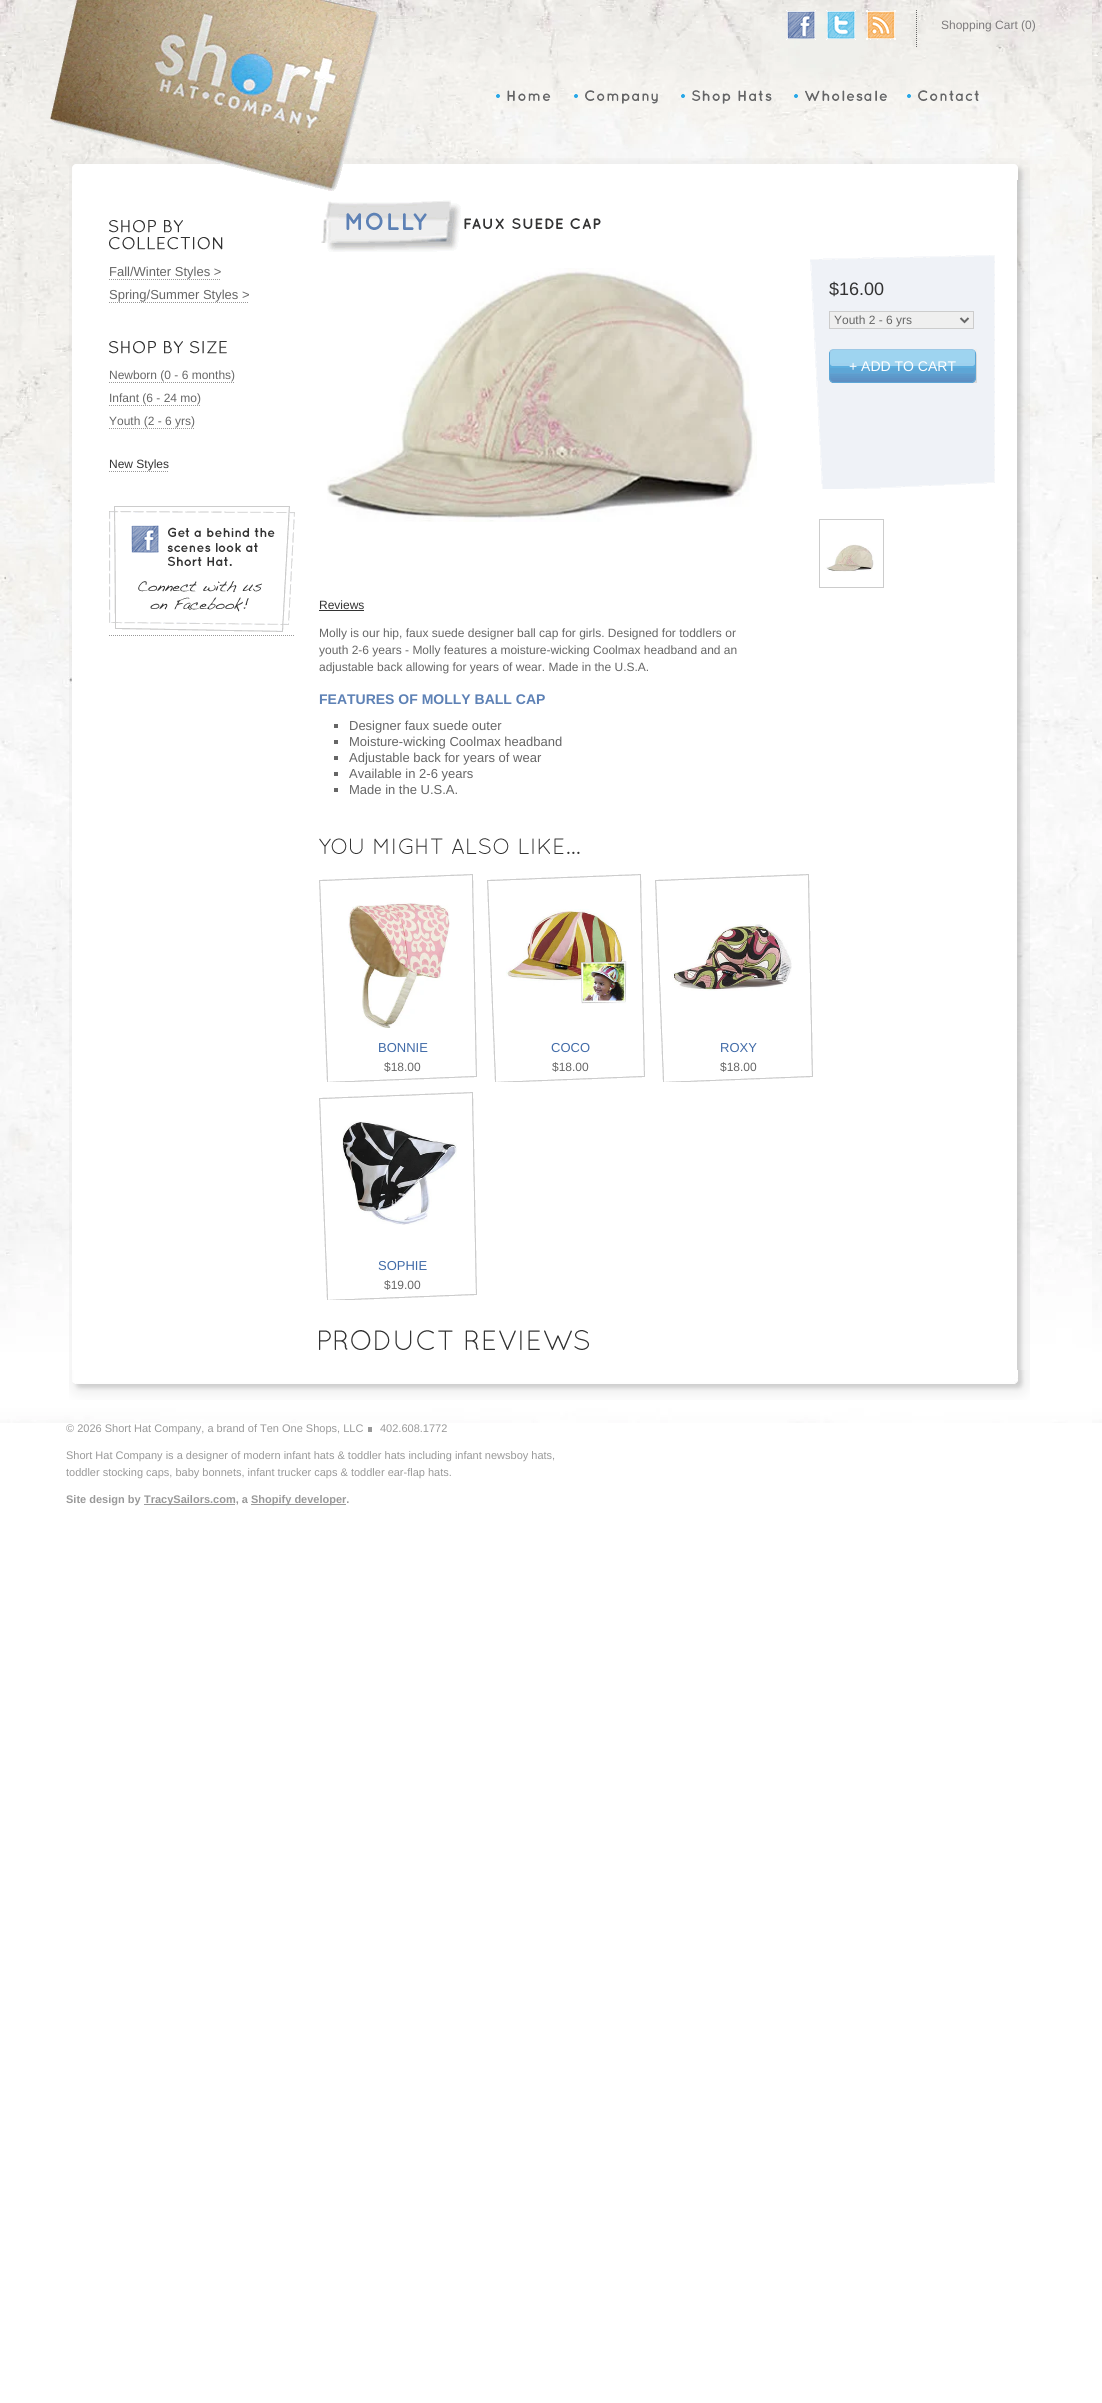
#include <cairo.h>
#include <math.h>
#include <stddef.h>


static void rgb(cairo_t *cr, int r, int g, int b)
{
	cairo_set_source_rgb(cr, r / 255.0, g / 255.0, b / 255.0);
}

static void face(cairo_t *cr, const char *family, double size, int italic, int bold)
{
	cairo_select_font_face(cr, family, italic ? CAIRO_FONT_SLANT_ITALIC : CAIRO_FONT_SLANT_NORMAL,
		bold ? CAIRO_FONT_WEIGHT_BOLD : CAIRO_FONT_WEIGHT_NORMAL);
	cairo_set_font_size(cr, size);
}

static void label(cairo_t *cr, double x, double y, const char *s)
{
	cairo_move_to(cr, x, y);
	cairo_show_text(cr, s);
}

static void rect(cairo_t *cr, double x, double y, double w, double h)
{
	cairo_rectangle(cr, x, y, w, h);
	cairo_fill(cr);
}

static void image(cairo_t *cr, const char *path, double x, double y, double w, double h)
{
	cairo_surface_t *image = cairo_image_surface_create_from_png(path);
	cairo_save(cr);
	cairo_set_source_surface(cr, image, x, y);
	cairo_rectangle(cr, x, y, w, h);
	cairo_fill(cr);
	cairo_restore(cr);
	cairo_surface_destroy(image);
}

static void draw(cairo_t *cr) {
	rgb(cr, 255, 255, 255);
	cairo_paint(cr);
	image(cr, "image0.png", 0, 0, 1102, 1423);
	image(cr, "image10.png", 69, 158, 961, 22);
	image(cr, "image11.png", 69, 180, 961, 1190);
	image(cr, "image1.png", 50, 0, 330, 191);
	image(cr, "image2.png", 786, 10, 30, 30);
	image(cr, "image3.png", 826, 10, 30, 30);
	image(cr, "image4.png", 866, 10, 30, 30);
	cairo_new_path(cr);
	cairo_move_to(cr, 916.5, 10);
	cairo_line_to(cr, 916.5, 48);
	rgb(cr, 102, 102, 102);
	cairo_set_line_width(cr, 1);
	cairo_set_dash(cr, (double[]){1, 1}, 2, 0);
	cairo_stroke(cr);
	face(cr, "Liberation Sans", 12, 0, 0);
	rgb(cr, 125, 122, 124);
	label(cr, 941, 29, "Shopping Cart (0)");
	image(cr, "image5.png", 496, 90, 55, 11);
	image(cr, "image6.png", 574, 90, 84, 14);
	image(cr, "image7.png", 681, 90, 91, 14);
	image(cr, "image8.png", 794, 90, 93, 11);
	image(cr, "image9.png", 907, 90, 72, 11);
	image(cr, "image12.png", 109, 220, 114, 30);
	face(cr, "Liberation Sans", 13, 0, 0);
	rgb(cr, 102, 102, 102);
	label(cr, 109, 276, "Fall/Winter Styles >");
	cairo_new_path(cr);
	cairo_move_to(cr, 109, 279.5);
	cairo_line_to(cr, 221, 279.5);
	rgb(cr, 153, 153, 153);
	cairo_stroke(cr);
	rgb(cr, 102, 102, 102);
	label(cr, 109, 299, "Spring/Summer Styles >");
	cairo_new_path(cr);
	cairo_move_to(cr, 109, 302.5);
	cairo_line_to(cr, 249, 302.5);
	rgb(cr, 153, 153, 153);
	cairo_stroke(cr);
	image(cr, "image13.png", 109, 341, 118, 13);
	face(cr, "Liberation Sans", 12, 0, 0);
	rgb(cr, 102, 102, 102);
	label(cr, 109, 379, "Newborn (0 - 6 months)");
	cairo_new_path(cr);
	cairo_move_to(cr, 109, 382.5);
	cairo_line_to(cr, 235, 382.5);
	rgb(cr, 153, 153, 153);
	cairo_stroke(cr);
	rgb(cr, 102, 102, 102);
	label(cr, 109, 402, "Infant (6 - 24 mo)");
	cairo_new_path(cr);
	cairo_move_to(cr, 109, 405.5);
	cairo_line_to(cr, 201, 405.5);
	rgb(cr, 153, 153, 153);
	cairo_stroke(cr);
	rgb(cr, 102, 102, 102);
	label(cr, 109, 425, "Youth (2 - 6 yrs)");
	cairo_new_path(cr);
	cairo_move_to(cr, 109, 428.5);
	cairo_line_to(cr, 195, 428.5);
	rgb(cr, 153, 153, 153);
	cairo_stroke(cr);
	rgb(cr, 51, 51, 51);
	label(cr, 109, 468, "New Styles");
	cairo_new_path(cr);
	cairo_move_to(cr, 109, 471.5);
	cairo_line_to(cr, 169, 471.5);
	rgb(cr, 153, 153, 153);
	cairo_stroke(cr);
	image(cr, "image14.png", 109, 506, 186, 126);
	cairo_new_path(cr);
	cairo_move_to(cr, 109, 635.5);
	cairo_line_to(cr, 295, 635.5);
	cairo_stroke(cr);
	image(cr, "image15.png", 321, 200, 280, 52);
	image(cr, "image16.png", 327, 268, 430, 254);
	image(cr, "image17.png", 810, 255, 185, 234);
	face(cr, "Liberation Sans", 18, 0, 0);
	rgb(cr, 51, 51, 51);
	label(cr, 829, 295, "$16.00");
	rgb(cr, 239, 239, 239);
	cairo_rectangle(cr, 829.5, 311.5, 144, 17);
	cairo_fill_preserve(cr);
	rgb(cr, 204, 204, 204);
	cairo_set_dash(cr, NULL, 0, 0);
	cairo_stroke(cr);
	cairo_new_path(cr);
	cairo_move_to(cr, 960.5, 318);
	cairo_line_to(cr, 964.5, 322);
	cairo_line_to(cr, 968.5, 318);
	rgb(cr, 102, 102, 102);
	cairo_set_line_width(cr, 2);
	cairo_stroke(cr);
	face(cr, "Liberation Sans", 12, 0, 0);
	label(cr, 834, 324, "Youth 2 - 6 yrs");
	rgb(cr, 239, 239, 239);
	rect(cr, 829, 349, 148, 34);
	image(cr, "image18.png", 829, 349, 148, 34);
	face(cr, "Liberation Sans", 14, 0, 0);
	rgb(cr, 255, 255, 255);
	label(cr, 849, 371, "+ ADD TO CART");
	cairo_rectangle(cr, 819.5, 519.5, 64, 68);
	rgb(cr, 204, 204, 204);
	cairo_set_line_width(cr, 1);
	cairo_stroke(cr);
	image(cr, "image19.png", 826, 544, 48, 28);
	face(cr, "Liberation Sans", 12, 0, 0);
	rgb(cr, 51, 51, 51);
	label(cr, 319, 609, "Reviews");
	rect(cr, 319, 610, 45, 1);
	rgb(cr, 102, 102, 102);
	label(cr, 319, 637, "Molly is our hip, faux suede designer ball cap for girls. Designed for toddlers or");
	label(cr, 319, 654, "youth 2-6 years - Molly features a moisture-wicking Coolmax headband and an");
	label(cr, 319, 671, "adjustable back allowing for years of wear. Made in the U.S.A.");
	face(cr, "Liberation Sans", 14, 0, 1);
	rgb(cr, 93, 129, 181);
	label(cr, 319, 704, "FEATURES OF MOLLY BALL CAP");
	rgb(cr, 102, 102, 102);
	rect(cr, 334, 724, 4, 4);
	face(cr, "Liberation Sans", 13, 0, 0);
	label(cr, 349, 730, "Designer faux suede outer");
	rect(cr, 334, 740, 4, 4);
	label(cr, 349, 746, "Moisture-wicking Coolmax headband");
	rect(cr, 334, 756, 4, 4);
	label(cr, 349, 762, "Adjustable back for years of wear");
	rect(cr, 334, 772, 4, 4);
	label(cr, 349, 778, "Available in 2-6 years");
	rect(cr, 334, 788, 4, 4);
	label(cr, 349, 794, "Made in the U.S.A.");
	image(cr, "image20.png", 319, 838, 261, 16);
	image(cr, "image21.png", 319, 874, 158, 208);
	image(cr, "image22.png", 348, 902, 102, 126);
	rgb(cr, 65, 107, 168);
	label(cr, 378, 1052, "BONNIE");
	face(cr, "Liberation Sans", 12, 0, 0);
	rgb(cr, 102, 102, 102);
	label(cr, 384, 1071, "$18.00");
	image(cr, "image21.png", 487, 874, 158, 208);
	image(cr, "image23.png", 506, 909, 121, 95);
	face(cr, "Liberation Sans", 13, 0, 0);
	rgb(cr, 65, 107, 168);
	label(cr, 551, 1052, "COCO");
	face(cr, "Liberation Sans", 12, 0, 0);
	rgb(cr, 102, 102, 102);
	label(cr, 552, 1071, "$18.00");
	image(cr, "image21.png", 655, 874, 158, 208);
	image(cr, "image24.png", 672, 924, 120, 67);
	face(cr, "Liberation Sans", 13, 0, 0);
	rgb(cr, 65, 107, 168);
	label(cr, 720, 1052, "ROXY");
	face(cr, "Liberation Sans", 12, 0, 0);
	rgb(cr, 102, 102, 102);
	label(cr, 720, 1071, "$18.00");
	image(cr, "image21.png", 319, 1092, 158, 208);
	image(cr, "image25.png", 342, 1121, 115, 104);
	face(cr, "Liberation Sans", 13, 0, 0);
	rgb(cr, 65, 107, 168);
	label(cr, 378, 1270, "SOPHIE");
	face(cr, "Liberation Sans", 12, 0, 0);
	rgb(cr, 102, 102, 102);
	label(cr, 384, 1289, "$19.00");
	image(cr, "image26.png", 319, 1330, 270, 20);
	image(cr, "image27.png", 69, 1370, 961, 30);
	face(cr, "Liberation Sans", 11, 0, 0);
	rgb(cr, 153, 153, 153);
	label(cr, 66, 1432, "© 2026 Short Hat Company, a brand of Ten One Shops, LLC");
	rect(cr, 368, 1427, 4, 5);
	label(cr, 380, 1432, "402.608.1772");
	label(cr, 66, 1459, "Short Hat Company is a designer of modern infant hats & toddler hats including infant newsboy hats,");
	label(cr, 66, 1476, "toddler stocking caps, baby bonnets, infant trucker caps & toddler ear-flap hats.");
	face(cr, "Liberation Sans", 11, 0, 1);
	label(cr, 66, 1503, "Site design by");
	rect(cr, 144, 1504, 91, 1);
	label(cr, 144, 1503, "TracySailors.com, a");
	rect(cr, 251, 1504, 95, 1);
	label(cr, 251, 1503, "Shopify developer.");
}

int main(void) {
	cairo_surface_t *surface = cairo_image_surface_create(CAIRO_FORMAT_RGB24, 1102, 2403);
	cairo_t *cr = cairo_create(surface);
	cairo_font_options_t *options = cairo_font_options_create();
	cairo_font_options_set_hint_metrics(options, CAIRO_HINT_METRICS_OFF);
	cairo_font_options_set_hint_style(options, CAIRO_HINT_STYLE_NONE);
	cairo_set_font_options(cr, options);
	cairo_set_miter_limit(cr, 4);
	draw(cr);
	cairo_surface_write_to_png(surface, "render.png");
	cairo_font_options_destroy(options);
	cairo_destroy(cr);
	cairo_surface_destroy(surface);
	return 0;
}
